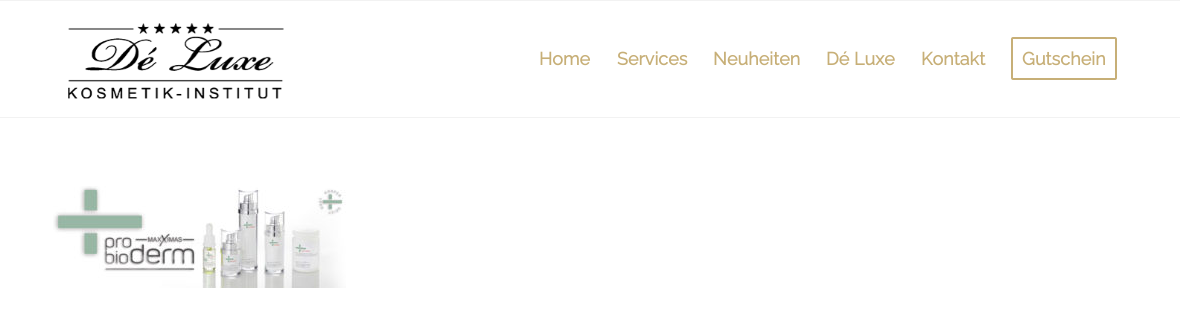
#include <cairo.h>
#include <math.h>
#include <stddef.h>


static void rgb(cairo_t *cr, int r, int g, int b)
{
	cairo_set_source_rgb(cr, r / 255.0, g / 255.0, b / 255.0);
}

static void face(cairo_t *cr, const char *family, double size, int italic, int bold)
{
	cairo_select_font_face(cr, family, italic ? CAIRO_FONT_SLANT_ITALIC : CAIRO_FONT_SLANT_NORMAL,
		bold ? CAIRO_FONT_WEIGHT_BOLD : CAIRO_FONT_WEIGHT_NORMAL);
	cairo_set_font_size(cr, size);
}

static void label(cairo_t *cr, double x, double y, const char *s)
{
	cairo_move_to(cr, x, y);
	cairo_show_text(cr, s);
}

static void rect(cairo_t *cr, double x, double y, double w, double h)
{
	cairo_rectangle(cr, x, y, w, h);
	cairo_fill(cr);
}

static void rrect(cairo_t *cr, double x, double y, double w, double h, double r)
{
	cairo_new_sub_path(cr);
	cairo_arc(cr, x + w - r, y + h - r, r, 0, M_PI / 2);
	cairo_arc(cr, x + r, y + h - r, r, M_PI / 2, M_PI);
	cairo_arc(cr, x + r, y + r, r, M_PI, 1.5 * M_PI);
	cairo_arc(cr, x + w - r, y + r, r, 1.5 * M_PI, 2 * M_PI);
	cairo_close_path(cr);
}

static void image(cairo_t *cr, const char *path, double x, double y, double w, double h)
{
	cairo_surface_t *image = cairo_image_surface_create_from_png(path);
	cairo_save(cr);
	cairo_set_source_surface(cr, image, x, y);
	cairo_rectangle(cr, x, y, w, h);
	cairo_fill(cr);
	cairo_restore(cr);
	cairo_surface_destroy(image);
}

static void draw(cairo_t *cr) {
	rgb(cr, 255, 255, 255);
	cairo_paint(cr);
	rgb(cr, 242, 242, 242);
	rect(cr, 0, 0, 1180, 1);
	rect(cr, 0, 117, 1180, 1);
	image(cr, "image0.png", 68, 23, 216, 76);
	face(cr, "Raleway", 18, 0, 1);
	rgb(cr, 199, 175, 119);
	label(cr, 539, 65, "Home");
	label(cr, 617, 65, "Services");
	label(cr, 713, 65, "Neuheiten");
	label(cr, 826, 65, "Dé Luxe");
	label(cr, 921, 65, "Kontakt");
	rrect(cr, 1012, 38, 104, 41, 1);
	cairo_stroke(cr);
	label(cr, 1022, 65, "Gutschein");
	image(cr, "image1.png", 53, 186, 293, 102);
}

int main(void) {
	cairo_surface_t *surface = cairo_image_surface_create(CAIRO_FORMAT_RGB24, 1180, 310);
	cairo_t *cr = cairo_create(surface);
	cairo_font_options_t *options = cairo_font_options_create();
	cairo_font_options_set_hint_metrics(options, CAIRO_HINT_METRICS_OFF);
	cairo_font_options_set_hint_style(options, CAIRO_HINT_STYLE_NONE);
	cairo_set_font_options(cr, options);
	cairo_set_miter_limit(cr, 4);
	draw(cr);
	cairo_surface_write_to_png(surface, "render.png");
	cairo_font_options_destroy(options);
	cairo_destroy(cr);
	cairo_surface_destroy(surface);
	return 0;
}
